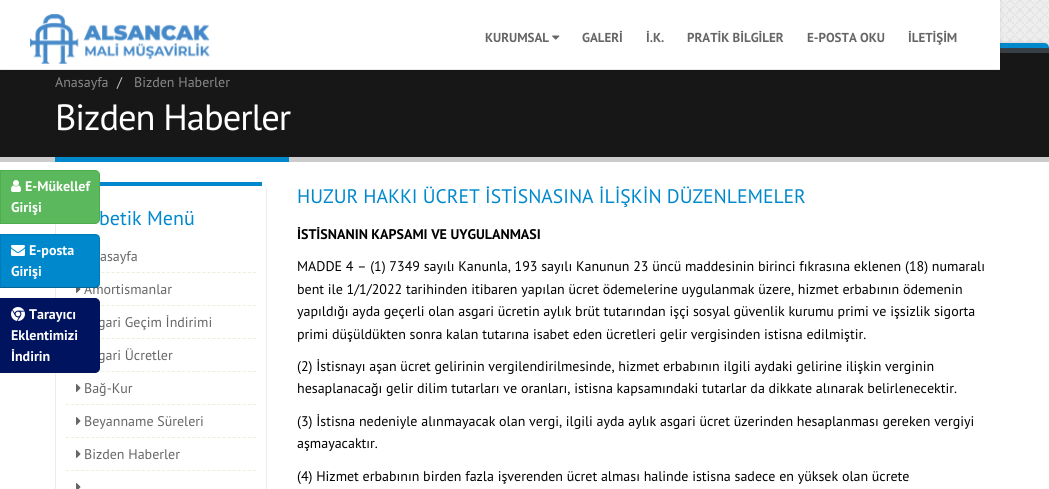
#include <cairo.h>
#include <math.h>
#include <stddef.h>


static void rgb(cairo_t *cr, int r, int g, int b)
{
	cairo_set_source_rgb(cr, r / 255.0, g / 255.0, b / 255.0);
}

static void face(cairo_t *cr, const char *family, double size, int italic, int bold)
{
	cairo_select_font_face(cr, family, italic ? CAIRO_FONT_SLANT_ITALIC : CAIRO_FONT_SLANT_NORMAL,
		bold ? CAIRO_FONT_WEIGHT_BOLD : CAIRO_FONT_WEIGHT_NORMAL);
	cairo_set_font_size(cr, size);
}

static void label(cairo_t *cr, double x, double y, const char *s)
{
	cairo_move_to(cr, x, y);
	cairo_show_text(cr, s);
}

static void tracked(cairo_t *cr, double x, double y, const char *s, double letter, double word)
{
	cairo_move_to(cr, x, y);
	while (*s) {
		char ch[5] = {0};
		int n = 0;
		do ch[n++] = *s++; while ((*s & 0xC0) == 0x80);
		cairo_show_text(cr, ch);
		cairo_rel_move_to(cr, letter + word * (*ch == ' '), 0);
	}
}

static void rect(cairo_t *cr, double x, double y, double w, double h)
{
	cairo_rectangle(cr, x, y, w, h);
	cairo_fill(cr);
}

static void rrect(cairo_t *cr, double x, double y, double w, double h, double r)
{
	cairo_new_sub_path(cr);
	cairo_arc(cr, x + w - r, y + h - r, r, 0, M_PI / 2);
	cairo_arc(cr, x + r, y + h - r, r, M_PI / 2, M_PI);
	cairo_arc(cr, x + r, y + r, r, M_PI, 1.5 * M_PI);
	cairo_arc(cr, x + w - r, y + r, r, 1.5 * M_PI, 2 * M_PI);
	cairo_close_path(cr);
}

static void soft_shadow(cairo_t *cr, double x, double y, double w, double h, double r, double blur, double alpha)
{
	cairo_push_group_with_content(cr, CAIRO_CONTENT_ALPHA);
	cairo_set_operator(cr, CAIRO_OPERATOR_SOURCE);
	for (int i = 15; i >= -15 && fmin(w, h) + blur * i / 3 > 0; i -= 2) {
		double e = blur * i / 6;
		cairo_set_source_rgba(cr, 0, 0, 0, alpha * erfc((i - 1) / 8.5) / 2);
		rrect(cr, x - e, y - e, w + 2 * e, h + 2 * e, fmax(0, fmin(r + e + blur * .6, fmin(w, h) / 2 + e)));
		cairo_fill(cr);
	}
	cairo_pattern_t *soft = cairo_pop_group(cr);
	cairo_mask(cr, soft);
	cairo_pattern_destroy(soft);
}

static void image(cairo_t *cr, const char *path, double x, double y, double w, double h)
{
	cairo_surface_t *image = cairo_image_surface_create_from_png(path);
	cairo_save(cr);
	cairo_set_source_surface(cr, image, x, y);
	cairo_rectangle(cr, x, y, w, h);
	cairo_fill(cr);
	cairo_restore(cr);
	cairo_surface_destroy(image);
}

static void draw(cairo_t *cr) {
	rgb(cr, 255, 255, 255);
	cairo_paint(cr);
	image(cr, "image0.png", 1000, 0, 49, 48);
	rgb(cr, 0, 0, 0);
	soft_shadow(cr, 0, 43, 1049, 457, 5, 2, 0.15);
	rgb(cr, 255, 255, 255);
	rrect(cr, 0, 43, 1049, 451, 5);
	cairo_fill(cr);
	rgb(cr, 236, 236, 236);
	cairo_new_path(cr);
	cairo_move_to(cr, 55, 190);
	cairo_line_to(cr, 55, 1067);
	cairo_curve_to(cr, 55, 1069, 56, 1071, 58, 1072);
	cairo_curve_to(cr, 57, 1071, 56, 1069, 56, 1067);
	cairo_line_to(cr, 56, 190);
	cairo_curve_to(cr, 56, 186, 59, 182, 63, 182);
	cairo_curve_to(cr, 59, 182, 55, 186, 55, 190);
	cairo_close_path(cr);
	cairo_fill(cr);
	rgb(cr, 92, 184, 92);
	cairo_new_path(cr);
	cairo_move_to(cr, 0.5, 170.5);
	cairo_line_to(cr, 95, 170.5);
	cairo_curve_to(cr, 97.5, 170.5, 99.5, 172.5, 99.5, 175);
	cairo_line_to(cr, 99.5, 219);
	cairo_curve_to(cr, 99.5, 221.5, 97.5, 223.5, 95, 223.5);
	cairo_line_to(cr, 0.5, 223.5);
	cairo_close_path(cr);
	cairo_fill_preserve(cr);
	rgb(cr, 76, 174, 76);
	cairo_set_line_width(cr, 1);
	cairo_stroke(cr);
	image(cr, "image1.png", 11, 180, 10, 12);
	face(cr, "PT Sans", 14, 0, 1);
	rgb(cr, 255, 255, 255);
	label(cr, 25, 191, "E-Mükellef");
	label(cr, 11, 212, "Girişi");
	cairo_new_path(cr);
	cairo_move_to(cr, 66, 272.5);
	cairo_line_to(cr, 256, 272.5);
	rgb(cr, 237, 237, 222);
	cairo_set_dash(cr, (double[]){3, 2.05}, 2, 0);
	cairo_stroke(cr);
	face(cr, "PT Sans", 14, 0, 0);
	rgb(cr, 102, 102, 102);
	label(cr, 84, 294, "Amortismanlar");
	rgb(cr, 0, 136, 204);
	cairo_new_path(cr);
	cairo_move_to(cr, 0, 234);
	cairo_line_to(cr, 95, 234);
	cairo_curve_to(cr, 98, 234, 100, 236, 100, 239);
	cairo_line_to(cr, 100, 283);
	cairo_curve_to(cr, 100, 286, 98, 288, 95, 288);
	cairo_line_to(cr, 0, 288);
	cairo_close_path(cr);
	cairo_fill(cr);
	cairo_set_source_rgba(cr, 0, 0, 0, 0.1);
	cairo_new_path(cr);
	cairo_move_to(cr, 0, 234);
	cairo_line_to(cr, 1, 235);
	cairo_line_to(cr, 95, 235);
	cairo_line_to(cr, 98, 236);
	cairo_line_to(cr, 99, 235);
	cairo_curve_to(cr, 98, 234, 96, 234, 95, 234);
	cairo_close_path(cr);
	cairo_fill(cr);
	cairo_new_path(cr);
	cairo_move_to(cr, 100, 283);
	cairo_line_to(cr, 100, 239);
	cairo_curve_to(cr, 100, 238, 100, 236, 99, 235);
	cairo_line_to(cr, 98, 236);
	cairo_curve_to(cr, 98, 237, 99, 238, 99, 239);
	cairo_line_to(cr, 99, 283);
	cairo_curve_to(cr, 99, 284, 98, 285, 98, 286);
	cairo_line_to(cr, 99, 287);
	cairo_curve_to(cr, 100, 286, 100, 284, 100, 283);
	cairo_close_path(cr);
	cairo_fill(cr);
	cairo_set_source_rgba(cr, 0, 0, 0, 0.25);
	cairo_new_path(cr);
	cairo_move_to(cr, 95, 288);
	cairo_curve_to(cr, 96, 288, 98, 288, 99, 287);
	cairo_line_to(cr, 98, 286);
	cairo_line_to(cr, 95, 287);
	cairo_line_to(cr, 1, 287);
	cairo_line_to(cr, 0, 288);
	cairo_close_path(cr);
	cairo_fill(cr);
	cairo_set_source_rgba(cr, 0, 0, 0, 0.1);
	cairo_new_path(cr);
	cairo_move_to(cr, 0, 234);
	cairo_line_to(cr, 0, 288);
	cairo_line_to(cr, 1, 287);
	cairo_line_to(cr, 1, 235);
	cairo_close_path(cr);
	cairo_fill(cr);
	image(cr, "image2.png", 11, 245, 14, 11);
	face(cr, "PT Sans", 14, 0, 1);
	rgb(cr, 255, 255, 255);
	label(cr, 29, 255, "E-posta");
	label(cr, 11, 276, "Girişi");
	cairo_new_path(cr);
	cairo_move_to(cr, 66, 305.5);
	cairo_line_to(cr, 256, 305.5);
	rgb(cr, 237, 237, 222);
	cairo_stroke(cr);
	cairo_new_path(cr);
	cairo_move_to(cr, 66, 338.5);
	cairo_line_to(cr, 256, 338.5);
	cairo_stroke(cr);
	face(cr, "PT Sans", 14, 0, 0);
	rgb(cr, 102, 102, 102);
	label(cr, 98, 327, "gari Geçim İndirimi");
	cairo_new_path(cr);
	cairo_move_to(cr, 66, 371.5);
	cairo_line_to(cr, 256, 371.5);
	rgb(cr, 237, 237, 222);
	cairo_stroke(cr);
	rgb(cr, 102, 102, 102);
	label(cr, 98, 360, "gari Ücretler");
	rgb(cr, 0, 19, 95);
	cairo_new_path(cr);
	cairo_move_to(cr, 0.5, 298.5);
	cairo_line_to(cr, 95, 298.5);
	cairo_curve_to(cr, 97.5, 298.5, 99.5, 300.5, 99.5, 303);
	cairo_line_to(cr, 99.5, 368);
	cairo_curve_to(cr, 99.5, 370.5, 97.5, 372.5, 95, 372.5);
	cairo_line_to(cr, 0.5, 372.5);
	cairo_close_path(cr);
	cairo_fill_preserve(cr);
	cairo_set_dash(cr, NULL, 0, 0);
	cairo_stroke(cr);
	image(cr, "image3.png", 11, 307, 14, 14);
	face(cr, "PT Sans", 14, 0, 1);
	rgb(cr, 255, 255, 255);
	label(cr, 29, 319, "Tarayıcı");
	label(cr, 11, 340, "Eklentimizi");
	label(cr, 11, 361, "İndirin");
	rgb(cr, 0, 136, 204);
	cairo_new_path(cr);
	cairo_move_to(cr, 5, 43);
	cairo_curve_to(cr, 2, 43, 0, 45, 0, 48);
	cairo_line_to(cr, 1049, 48);
	cairo_curve_to(cr, 1049, 45, 1047, 43, 1044, 43);
	cairo_close_path(cr);
	cairo_fill(cr);
	rgb(cr, 23, 23, 23);
	rect(cr, 0, 53, 1049, 104);
	rgb(cr, 56, 64, 69);
	rect(cr, 1000, 48, 49, 5);
	rgb(cr, 0, 0, 0);
	soft_shadow(cr, 0, -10, 1000, 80, 5, 1.5, 0.1);
	rgb(cr, 255, 255, 255);
	rect(cr, 0, 0, 1000, 69);
	rgb(cr, 233, 233, 233);
	rect(cr, 0, 69, 1000, 1);
	image(cr, "image4.png", 30, 14, 180, 50);
	face(cr, "PT Sans", 13, 0, 1);
	rgb(cr, 102, 102, 102);
	label(cr, 485, 42, "KURUMSAL");
	image(cr, "image5.png", 552, 35, 8, 5);
	label(cr, 582, 42, "GALERİ");
	label(cr, 646, 42, "İ.K.");
	label(cr, 687, 42, "PRATİK BİLGİLER");
	label(cr, 807, 42, "E-POSTA OKU");
	label(cr, 908, 42, "İLETİŞİM");
	rgb(cr, 204, 204, 204);
	rect(cr, 0, 157, 1049, 5);
	face(cr, "PT Sans", 14, 0, 0);
	rgb(cr, 136, 136, 136);
	label(cr, 55, 87, "Anasayfa");
	rgb(cr, 204, 204, 204);
	label(cr, 117, 87, "/");
	rgb(cr, 136, 136, 136);
	label(cr, 134, 87, "Bizden Haberler");
	rgb(cr, 0, 136, 204);
	rect(cr, 55, 157, 234, 5);
	face(cr, "PT Sans", 36.5, 0, 0);
	rgb(cr, 255, 255, 255);
	tracked(cr, 55, 130, "Bizden Haberler", -1, 0);
	rgb(cr, 236, 236, 236);
	cairo_new_path(cr);
	cairo_move_to(cr, 267, 190);
	cairo_curve_to(cr, 267, 186, 263, 182, 259, 182);
	cairo_curve_to(cr, 263, 182, 266, 186, 266, 190);
	cairo_line_to(cr, 266, 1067);
	cairo_curve_to(cr, 266, 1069, 265, 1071, 264, 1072);
	cairo_curve_to(cr, 266, 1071, 267, 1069, 267, 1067);
	cairo_close_path(cr);
	cairo_fill(cr);
	rgb(cr, 0, 136, 204);
	rect(cr, 100, 182, 162, 4);
	face(cr, "PT Sans", 20, 0, 0);
	label(cr, 99, 225, "betik Menü");
	face(cr, "PT Sans", 14, 0, 0);
	rgb(cr, 102, 102, 102);
	label(cr, 100, 261, "asayfa");
	image(cr, "image6.png", 76, 288, 5, 5);
	cairo_new_path(cr);
	cairo_move_to(cr, 66, 404.5);
	cairo_line_to(cr, 256, 404.5);
	rgb(cr, 237, 237, 222);
	cairo_set_dash(cr, (double[]){3, 2.05}, 2, 0);
	cairo_stroke(cr);
	image(cr, "image7.png", 76, 384, 5, 8);
	rgb(cr, 102, 102, 102);
	label(cr, 84, 393, "Bağ-Kur");
	cairo_new_path(cr);
	cairo_move_to(cr, 66, 437.5);
	cairo_line_to(cr, 256, 437.5);
	rgb(cr, 237, 237, 222);
	cairo_stroke(cr);
	image(cr, "image8.png", 76, 417, 5, 8);
	rgb(cr, 102, 102, 102);
	label(cr, 84, 426, "Beyanname Süreleri");
	cairo_new_path(cr);
	cairo_move_to(cr, 66, 470.5);
	cairo_line_to(cr, 256, 470.5);
	rgb(cr, 237, 237, 222);
	cairo_stroke(cr);
	image(cr, "image8.png", 76, 450, 5, 8);
	rgb(cr, 102, 102, 102);
	label(cr, 84, 459, "Bizden Haberler");
	image(cr, "image9.png", 76, 483, 5, 6);
	face(cr, "PT Sans", 19.6, 0, 0);
	rgb(cr, 0, 136, 204);
	label(cr, 297, 203, "HUZUR HAKKI ÜCRET İSTİSNASINA İLİŞKİN DÜZENLEMELER");
	face(cr, "PT Sans", 14, 0, 1);
	rgb(cr, 0, 0, 0);
	label(cr, 297, 239, "İSTİSNANIN KAPSAMI VE UYGULANMASI");
	face(cr, "PT Sans", 14, 0, 0);
	label(cr, 297, 271, "MADDE 4 – (1) 7349 sayılı Kanunla, 193 sayılı Kanunun 23 üncü maddesinin birinci fıkrasına eklenen (18) numaralı");
	label(cr, 297, 294, "bent ile 1/1/2022 tarihinden itibaren yapılan ücret ödemelerine uygulanmak üzere, hizmet erbabının ödemenin");
	label(cr, 297, 316, "yapıldığı ayda geçerli olan asgari ücretin aylık brüt tutarından işçi sosyal güvenlik kurumu primi ve işsizlik sigorta");
	label(cr, 297, 339, "primi düşüldükten sonra kalan tutarına isabet eden ücretleri gelir vergisinden istisna edilmiştir.");
	label(cr, 297, 371, "(2) İstisnayı aşan ücret gelirinin vergilendirilmesinde, hizmet erbabının ilgili aydaki gelirine ilişkin verginin");
	label(cr, 297, 393, "hesaplanacağı gelir dilim tutarları ve oranları, istisna kapsamındaki tutarlar da dikkate alınarak belirlenecektir.");
	label(cr, 297, 426, "(3) İstisna nedeniyle alınmayacak olan vergi, ilgili ayda aylık asgari ücret üzerinden hesaplanması gereken vergiyi");
	label(cr, 297, 448, "aşmayacaktır.");
	label(cr, 297, 481, "(4) Hizmet erbabının birden fazla işverenden ücret alması halinde istisna sadece en yüksek olan ücrete");
}

int main(void) {
	cairo_surface_t *surface = cairo_image_surface_create(CAIRO_FORMAT_RGB24, 1049, 489);
	cairo_t *cr = cairo_create(surface);
	cairo_font_options_t *options = cairo_font_options_create();
	cairo_font_options_set_hint_metrics(options, CAIRO_HINT_METRICS_OFF);
	cairo_font_options_set_hint_style(options, CAIRO_HINT_STYLE_NONE);
	cairo_set_font_options(cr, options);
	cairo_set_miter_limit(cr, 4);
	draw(cr);
	cairo_surface_write_to_png(surface, "render.png");
	cairo_font_options_destroy(options);
	cairo_destroy(cr);
	cairo_surface_destroy(surface);
	return 0;
}
